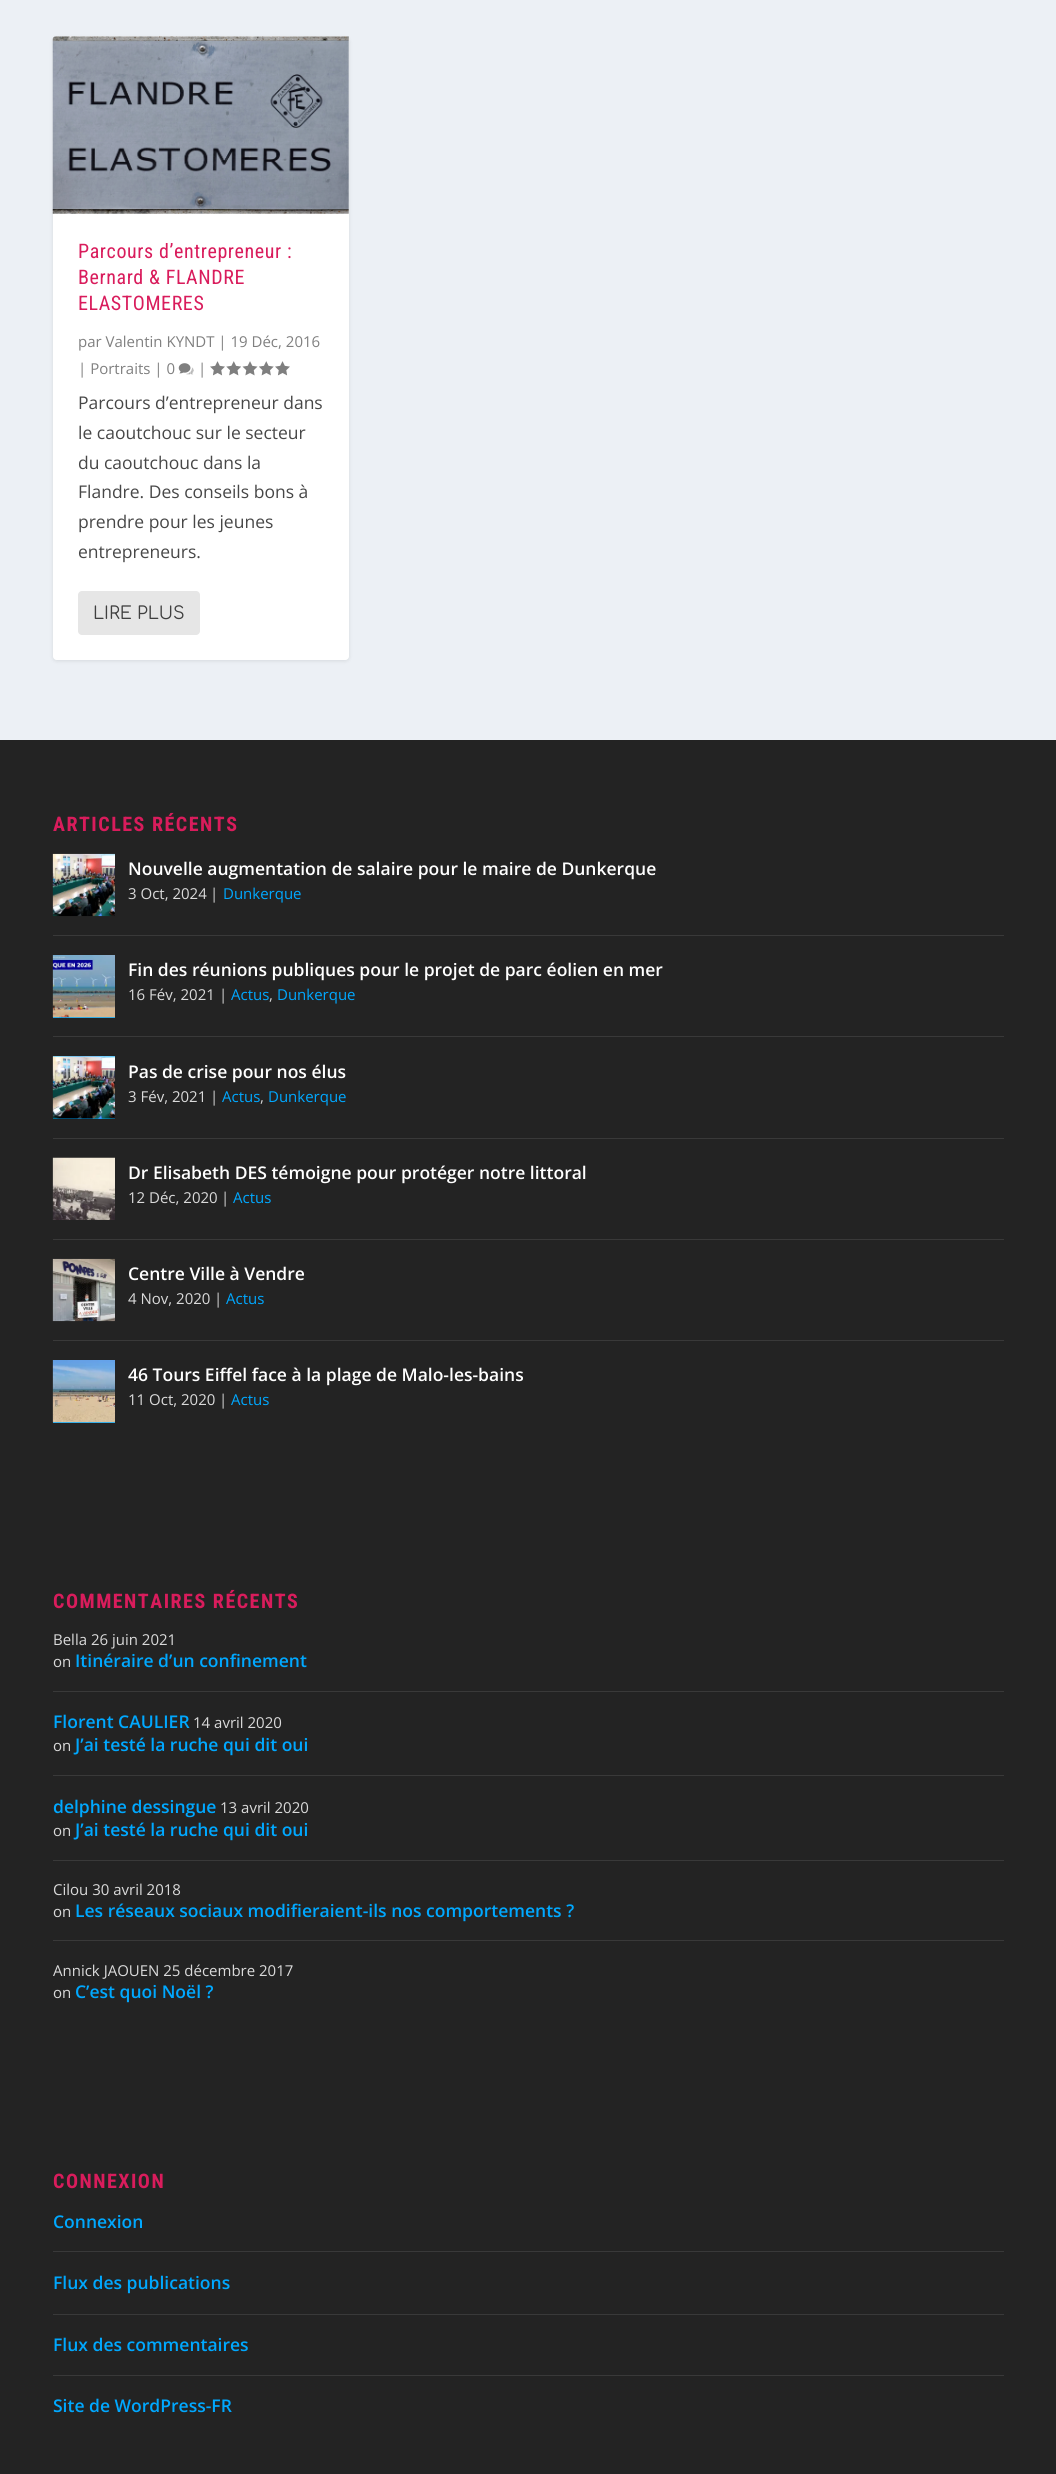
#include <cairo.h>
#include <math.h>
#include <stddef.h>


static void rgb(cairo_t *cr, int r, int g, int b)
{
	cairo_set_source_rgb(cr, r / 255.0, g / 255.0, b / 255.0);
}

static void face(cairo_t *cr, const char *family, double size, int italic, int bold)
{
	cairo_select_font_face(cr, family, italic ? CAIRO_FONT_SLANT_ITALIC : CAIRO_FONT_SLANT_NORMAL,
		bold ? CAIRO_FONT_WEIGHT_BOLD : CAIRO_FONT_WEIGHT_NORMAL);
	cairo_set_font_size(cr, size);
}

static void label(cairo_t *cr, double x, double y, const char *s)
{
	cairo_move_to(cr, x, y);
	cairo_show_text(cr, s);
}

static void tracked(cairo_t *cr, double x, double y, const char *s, double letter, double word)
{
	cairo_move_to(cr, x, y);
	while (*s) {
		char ch[5] = {0};
		int n = 0;
		do ch[n++] = *s++; while ((*s & 0xC0) == 0x80);
		cairo_show_text(cr, ch);
		cairo_rel_move_to(cr, letter + word * (*ch == ' '), 0);
	}
}

static void rect(cairo_t *cr, double x, double y, double w, double h)
{
	cairo_rectangle(cr, x, y, w, h);
	cairo_fill(cr);
}

static void rrect(cairo_t *cr, double x, double y, double w, double h, double r)
{
	cairo_new_sub_path(cr);
	cairo_arc(cr, x + w - r, y + h - r, r, 0, M_PI / 2);
	cairo_arc(cr, x + r, y + h - r, r, M_PI / 2, M_PI);
	cairo_arc(cr, x + r, y + r, r, M_PI, 1.5 * M_PI);
	cairo_arc(cr, x + w - r, y + r, r, 1.5 * M_PI, 2 * M_PI);
	cairo_close_path(cr);
}

static void soft_shadow(cairo_t *cr, double x, double y, double w, double h, double r, double blur, double alpha)
{
	cairo_push_group_with_content(cr, CAIRO_CONTENT_ALPHA);
	cairo_set_operator(cr, CAIRO_OPERATOR_SOURCE);
	for (int i = 15; i >= -15 && fmin(w, h) + blur * i / 3 > 0; i -= 2) {
		double e = blur * i / 6;
		cairo_set_source_rgba(cr, 0, 0, 0, alpha * erfc((i - 1) / 8.5) / 2);
		rrect(cr, x - e, y - e, w + 2 * e, h + 2 * e, fmax(0, fmin(r + e + blur * .6, fmin(w, h) / 2 + e)));
		cairo_fill(cr);
	}
	cairo_pattern_t *soft = cairo_pop_group(cr);
	cairo_mask(cr, soft);
	cairo_pattern_destroy(soft);
}

static void image(cairo_t *cr, const char *path, double x, double y, double w, double h)
{
	cairo_surface_t *image = cairo_image_surface_create_from_png(path);
	cairo_save(cr);
	cairo_set_source_surface(cr, image, x, y);
	cairo_rectangle(cr, x, y, w, h);
	cairo_fill(cr);
	cairo_restore(cr);
	cairo_surface_destroy(image);
}

static void draw(cairo_t *cr) {
	rgb(cr, 236, 240, 245);
	cairo_paint(cr);
	cairo_save(cr);
	cairo_set_fill_rule(cr, CAIRO_FILL_RULE_EVEN_ODD);
	cairo_new_path(cr);
	cairo_move_to(cr, 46, 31);
	cairo_line_to(cr, 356, 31);
	cairo_line_to(cr, 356, 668);
	cairo_line_to(cr, 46, 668);
	cairo_close_path(cr);
	cairo_move_to(cr, 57, 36);
	cairo_line_to(cr, 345, 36);
	cairo_curve_to(cr, 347, 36, 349, 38, 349, 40);
	cairo_line_to(cr, 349, 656);
	cairo_curve_to(cr, 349, 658, 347, 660, 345, 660);
	cairo_line_to(cr, 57, 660);
	cairo_curve_to(cr, 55, 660, 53, 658, 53, 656);
	cairo_line_to(cr, 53, 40);
	cairo_curve_to(cr, 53, 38, 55, 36, 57, 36);
	cairo_close_path(cr);
	cairo_clip(cr);
	rgb(cr, 0, 0, 0);
	soft_shadow(cr, 53, 38, 296, 623, 4, 2, 0.1);
	cairo_restore(cr);
	rgb(cr, 255, 255, 255);
	rrect(cr, 53, 36, 296, 624, 4);
	cairo_fill(cr);
	image(cr, "image0.png", 52, 36, 297, 178);
	face(cr, "Roboto Condensed", 20, 0, 0);
	rgb(cr, 217, 28, 92);
	tracked(cr, 78, 258, "Parcours d’entrepreneur :", 0.6, 0);
	tracked(cr, 78, 284, "Bernard & FLANDRE", 0.6, 0);
	tracked(cr, 78, 310, "ELASTOMERES", 0.6, 0);
	face(cr, "Open Sans", 15, 0, 0);
	rgb(cr, 128, 128, 128);
	label(cr, 78, 347, "par Valentin KYNDT | 19 Déc, 2016");
	label(cr, 78, 374, "| Portraits | 0");
	image(cr, "image1.png", 178, 363, 16, 12);
	label(cr, 198, 374, "|");
	image(cr, "image2.png", 210, 361, 15, 15);
	image(cr, "image3.png", 226, 361, 15, 15);
	image(cr, "image4.png", 242, 361, 16, 15);
	image(cr, "image5.png", 259, 361, 15, 15);
	image(cr, "image2.png", 275, 361, 15, 15);
	face(cr, "Open Sans", 17.5, 0, 0);
	rgb(cr, 71, 71, 71);
	label(cr, 78, 409, "Parcours d’entrepreneur dans");
	label(cr, 78, 439, "le caoutchouc sur le secteur");
	label(cr, 78, 469, "du caoutchouc dans la");
	label(cr, 78, 498, "Flandre. Des conseils bons à");
	label(cr, 78, 528, "prendre pour les jeunes");
	label(cr, 78, 558, "entrepreneurs.");
	rgb(cr, 230, 230, 230);
	rrect(cr, 78, 591, 122, 44, 4);
	cairo_fill(cr);
	face(cr, "Comfortaa", 17.5, 0, 0);
	rgb(cr, 64, 64, 64);
	label(cr, 93, 619, "LIRE PLUS");
	rgb(cr, 35, 35, 35);
	rect(cr, 0, 740, 1056, 1734);
	face(cr, "Roboto Condensed", 20, 0, 1);
	rgb(cr, 217, 28, 92);
	tracked(cr, 53, 831, "ARTICLES RÉCENTS", 1.5, 0);
	rgb(cr, 57, 57, 57);
	rect(cr, 53, 935, 951, 1);
	image(cr, "image6.png", 52, 853, 63, 64);
	face(cr, "Open Sans SemiBold", 17.5, 0, 0);
	rgb(cr, 255, 255, 255);
	label(cr, 128, 875, "Nouvelle augmentation de salaire pour le maire de Dunkerque");
	face(cr, "Open Sans", 15, 0, 0);
	rgb(cr, 218, 218, 218);
	label(cr, 128, 899, "3 Oct, 2024");
	rgb(cr, 211, 211, 211);
	label(cr, 210, 899, "|");
	rgb(cr, 0, 168, 255);
	label(cr, 223, 899, "Dunkerque");
	rgb(cr, 57, 57, 57);
	rect(cr, 53, 1036, 951, 1);
	rgb(cr, 0, 168, 255);
	rect(cr, 53, 1017, 62, 1);
	image(cr, "image7.png", 52, 955, 63, 63);
	face(cr, "Open Sans SemiBold", 17.5, 0, 0);
	rgb(cr, 255, 255, 255);
	label(cr, 128, 976, "Fin des réunions publiques pour le projet de parc éolien en mer");
	face(cr, "Open Sans", 15, 0, 0);
	rgb(cr, 218, 218, 218);
	label(cr, 128, 1000, "16 Fév, 2021");
	rgb(cr, 211, 211, 211);
	label(cr, 219, 1000, "|");
	rgb(cr, 0, 168, 255);
	label(cr, 231, 1000, "Actus");
	rgb(cr, 211, 211, 211);
	label(cr, 269, 1000, ",");
	rgb(cr, 0, 168, 255);
	label(cr, 277, 1000, "Dunkerque");
	rgb(cr, 57, 57, 57);
	rect(cr, 53, 1138, 951, 1);
	rgb(cr, 0, 168, 255);
	rect(cr, 53, 1056, 62, 63);
	image(cr, "image8.png", 52, 1056, 63, 63);
	face(cr, "Open Sans SemiBold", 17.5, 0, 0);
	rgb(cr, 255, 255, 255);
	label(cr, 128, 1078, "Pas de crise pour nos élus");
	face(cr, "Open Sans", 15, 0, 0);
	rgb(cr, 218, 218, 218);
	label(cr, 128, 1102, "3 Fév, 2021");
	rgb(cr, 211, 211, 211);
	label(cr, 210, 1102, "|");
	rgb(cr, 0, 168, 255);
	label(cr, 222, 1102, "Actus");
	rgb(cr, 211, 211, 211);
	label(cr, 260, 1102, ",");
	rgb(cr, 0, 168, 255);
	label(cr, 268, 1102, "Dunkerque");
	rgb(cr, 57, 57, 57);
	rect(cr, 53, 1239, 951, 1);
	image(cr, "image9.png", 52, 1157, 63, 63);
	face(cr, "Open Sans SemiBold", 17.5, 0, 0);
	rgb(cr, 255, 255, 255);
	label(cr, 128, 1179, "Dr Elisabeth DES témoigne pour protéger notre littoral");
	face(cr, "Open Sans", 15, 0, 0);
	rgb(cr, 218, 218, 218);
	label(cr, 128, 1203, "12 Déc, 2020");
	rgb(cr, 211, 211, 211);
	label(cr, 221, 1203, "|");
	rgb(cr, 0, 168, 255);
	label(cr, 233, 1203, "Actus");
	rgb(cr, 57, 57, 57);
	rect(cr, 53, 1340, 951, 1);
	image(cr, "image10.png", 52, 1258, 63, 64);
	face(cr, "Open Sans SemiBold", 17.5, 0, 0);
	rgb(cr, 255, 255, 255);
	label(cr, 128, 1280, "Centre Ville à Vendre");
	face(cr, "Open Sans", 15, 0, 0);
	rgb(cr, 218, 218, 218);
	label(cr, 128, 1304, "4 Nov, 2020");
	rgb(cr, 211, 211, 211);
	label(cr, 214, 1304, "|");
	rgb(cr, 0, 168, 255);
	label(cr, 226, 1304, "Actus");
	rect(cr, 53, 1422, 62, 1);
	image(cr, "image11.png", 52, 1360, 63, 63);
	face(cr, "Open Sans SemiBold", 17.5, 0, 0);
	rgb(cr, 255, 255, 255);
	label(cr, 128, 1381, "46 Tours Eiffel face à la plage de Malo-les-bains");
	face(cr, "Open Sans", 15, 0, 0);
	rgb(cr, 218, 218, 218);
	label(cr, 128, 1405, "11 Oct, 2020");
	rgb(cr, 211, 211, 211);
	label(cr, 219, 1405, "|");
	rgb(cr, 0, 168, 255);
	label(cr, 231, 1405, "Actus");
	face(cr, "Roboto Condensed", 20, 0, 1);
	rgb(cr, 217, 28, 92);
	tracked(cr, 53, 1608, "COMMENTAIRES RÉCENTS", 1.5, 0);
	rgb(cr, 57, 57, 57);
	rect(cr, 53, 1691, 951, 1);
	face(cr, "Open Sans", 15, 0, 0);
	rgb(cr, 218, 218, 218);
	label(cr, 53, 1645, "Bella 26 juin 2021");
	label(cr, 53, 1667, "on");
	face(cr, "Open Sans SemiBold", 17.5, 0, 0);
	rgb(cr, 0, 168, 255);
	label(cr, 75, 1667, "Itinéraire d’un confinement");
	rgb(cr, 57, 57, 57);
	rect(cr, 53, 1775, 951, 1);
	rgb(cr, 0, 168, 255);
	label(cr, 53, 1728, "Florent CAULIER");
	face(cr, "Open Sans", 15, 0, 0);
	rgb(cr, 218, 218, 218);
	label(cr, 193, 1728, "14 avril 2020");
	label(cr, 53, 1751, "on");
	face(cr, "Open Sans SemiBold", 17.5, 0, 0);
	rgb(cr, 0, 168, 255);
	label(cr, 75, 1751, "J’ai testé la ruche qui dit oui");
	rgb(cr, 57, 57, 57);
	rect(cr, 53, 1860, 951, 1);
	rgb(cr, 0, 168, 255);
	label(cr, 53, 1813, "delphine dessingue");
	face(cr, "Open Sans", 15, 0, 0);
	rgb(cr, 218, 218, 218);
	label(cr, 220, 1813, "13 avril 2020");
	label(cr, 53, 1836, "on");
	face(cr, "Open Sans SemiBold", 17.5, 0, 0);
	rgb(cr, 0, 168, 255);
	label(cr, 75, 1836, "J’ai testé la ruche qui dit oui");
	rgb(cr, 57, 57, 57);
	rect(cr, 53, 1940, 951, 1);
	face(cr, "Open Sans", 15, 0, 0);
	rgb(cr, 218, 218, 218);
	label(cr, 53, 1895, "Cilou 30 avril 2018");
	label(cr, 53, 1917, "on");
	face(cr, "Open Sans SemiBold", 17.5, 0, 0);
	rgb(cr, 0, 168, 255);
	label(cr, 75, 1917, "Les réseaux sociaux modifieraient-ils nos comportements ?");
	face(cr, "Open Sans", 15, 0, 0);
	rgb(cr, 218, 218, 218);
	label(cr, 53, 1976, "Annick JAOUEN 25 décembre 2017");
	label(cr, 53, 1998, "on");
	face(cr, "Open Sans SemiBold", 17.5, 0, 0);
	rgb(cr, 0, 168, 255);
	label(cr, 75, 1998, "C’est quoi Noël ?");
	face(cr, "Roboto Condensed", 20, 0, 1);
	rgb(cr, 217, 28, 92);
	tracked(cr, 53, 2188, "CONNEXION", 1.5, 0);
	rgb(cr, 57, 57, 57);
	rect(cr, 53, 2251, 951, 1);
	face(cr, "Open Sans SemiBold", 17.5, 0, 0);
	rgb(cr, 0, 168, 255);
	label(cr, 53, 2228, "Connexion");
	rgb(cr, 57, 57, 57);
	rect(cr, 53, 2314, 951, 1);
	rgb(cr, 0, 168, 255);
	label(cr, 53, 2289, "Flux des publications");
	rgb(cr, 57, 57, 57);
	rect(cr, 53, 2375, 951, 1);
	rgb(cr, 0, 168, 255);
	label(cr, 53, 2351, "Flux des commentaires");
	label(cr, 53, 2412, "Site de WordPress-FR");
}

int main(void) {
	cairo_surface_t *surface = cairo_image_surface_create(CAIRO_FORMAT_RGB24, 1056, 2474);
	cairo_t *cr = cairo_create(surface);
	cairo_font_options_t *options = cairo_font_options_create();
	cairo_font_options_set_hint_metrics(options, CAIRO_HINT_METRICS_OFF);
	cairo_font_options_set_hint_style(options, CAIRO_HINT_STYLE_NONE);
	cairo_set_font_options(cr, options);
	cairo_set_miter_limit(cr, 4);
	draw(cr);
	cairo_surface_write_to_png(surface, "render.png");
	cairo_font_options_destroy(options);
	cairo_destroy(cr);
	cairo_surface_destroy(surface);
	return 0;
}
